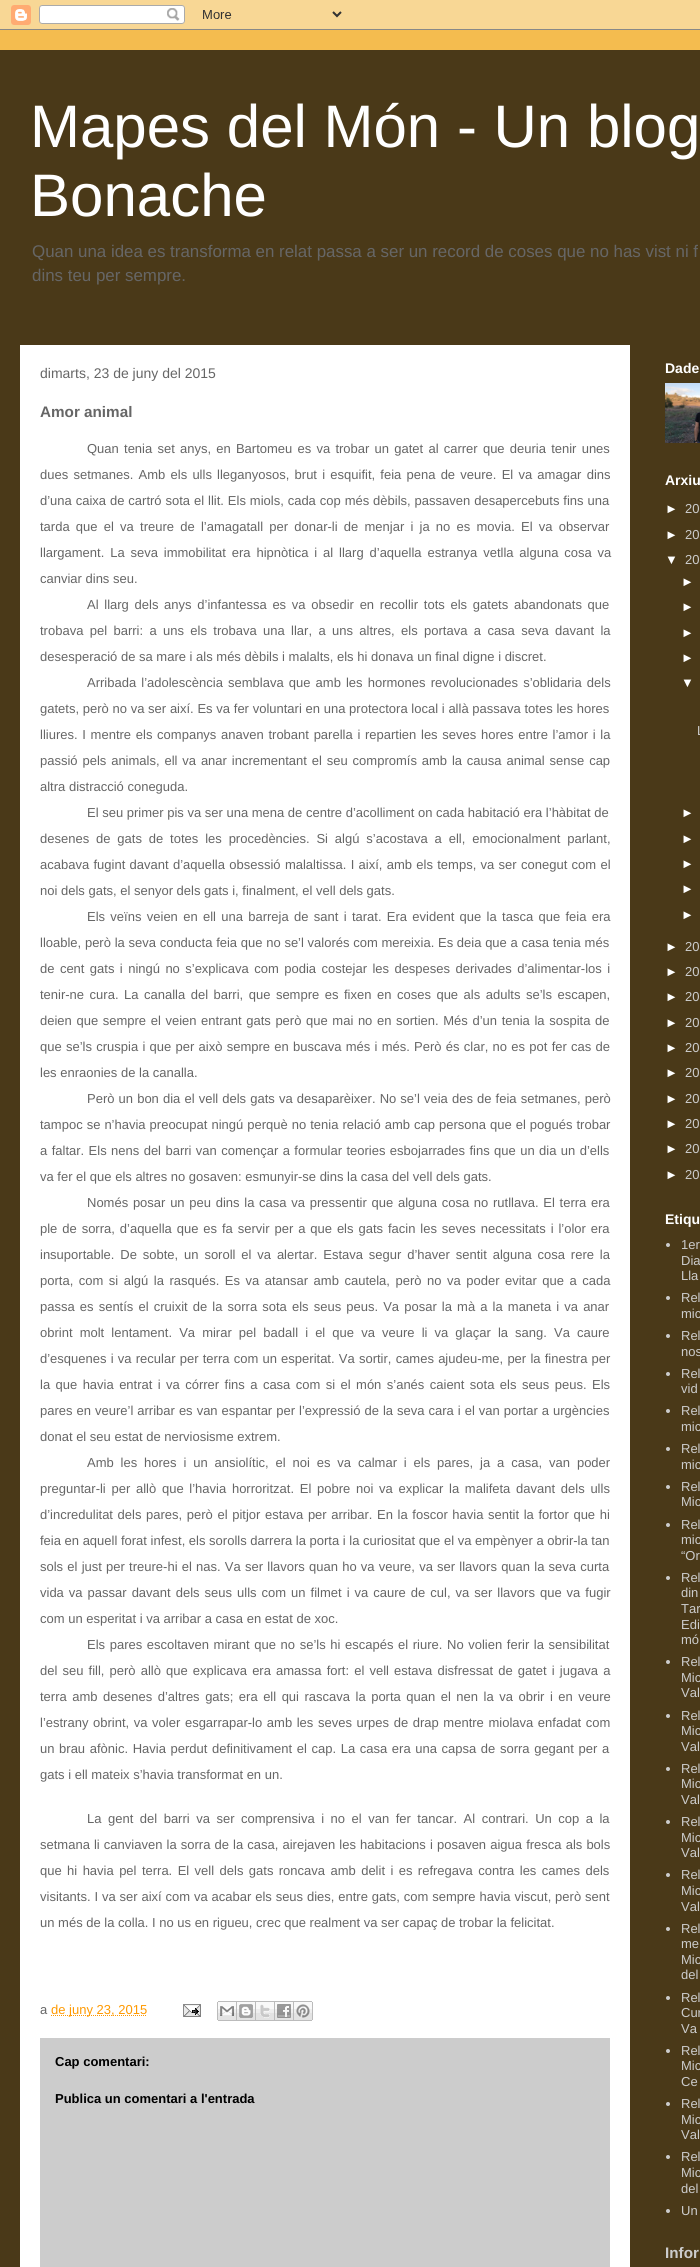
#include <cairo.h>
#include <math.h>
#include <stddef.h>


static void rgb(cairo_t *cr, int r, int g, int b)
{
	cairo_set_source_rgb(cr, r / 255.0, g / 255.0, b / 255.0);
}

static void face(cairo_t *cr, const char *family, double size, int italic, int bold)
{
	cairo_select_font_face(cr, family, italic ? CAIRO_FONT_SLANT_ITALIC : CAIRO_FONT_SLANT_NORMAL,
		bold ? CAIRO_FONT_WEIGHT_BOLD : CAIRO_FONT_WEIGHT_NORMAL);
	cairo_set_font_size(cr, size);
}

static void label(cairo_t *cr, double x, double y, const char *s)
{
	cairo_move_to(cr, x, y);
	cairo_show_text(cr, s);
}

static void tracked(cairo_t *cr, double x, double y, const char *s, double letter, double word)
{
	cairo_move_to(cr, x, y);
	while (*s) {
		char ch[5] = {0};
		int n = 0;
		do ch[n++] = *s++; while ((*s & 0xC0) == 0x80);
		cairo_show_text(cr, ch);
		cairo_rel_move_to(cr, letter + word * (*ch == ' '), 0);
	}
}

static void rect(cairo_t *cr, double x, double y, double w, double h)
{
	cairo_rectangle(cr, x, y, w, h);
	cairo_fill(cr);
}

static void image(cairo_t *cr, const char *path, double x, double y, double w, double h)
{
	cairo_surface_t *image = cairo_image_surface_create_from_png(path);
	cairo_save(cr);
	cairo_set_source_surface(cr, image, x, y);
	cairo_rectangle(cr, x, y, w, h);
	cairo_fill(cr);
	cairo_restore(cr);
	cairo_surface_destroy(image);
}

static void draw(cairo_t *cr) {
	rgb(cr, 244, 188, 79);
	cairo_paint(cr);
	image(cr, "image0.png", 0, 0, 700, 30);
	rgb(cr, 74, 57, 24);
	rect(cr, 0, 50, 700, 2217);
	face(cr, "Liberation Sans", 60, 0, 0);
	rgb(cr, 255, 255, 255);
	label(cr, 30, 147, "Mapes del Món - Un blog");
	label(cr, 30, 216, "Bonache");
	face(cr, "Liberation Sans", 16.9, 0, 0);
	rgb(cr, 102, 102, 102);
	label(cr, 32, 257, "Quan una idea es transforma en relat passa a ser un record de coses que no has vist ni f");
	label(cr, 32, 281, "dins teu per sempre.");
	rgb(cr, 255, 255, 255);
	rect(cr, 20, 345, 610, 1922);
	face(cr, "Liberation Sans", 14, 0, 0);
	rgb(cr, 102, 102, 102);
	label(cr, 40, 378, "dimarts, 23 de juny del 2015");
	face(cr, "Liberation Sans", 15.25, 0, 1);
	label(cr, 40, 417, "Amor animal");
	face(cr, "Liberation Sans", 13, 0, 0);
	tracked(cr, 87, 453, "Quan tenia set anys, en Bartomeu es va trobar un gatet al carrer que deuria tenir unes", 0, 1.6);
	tracked(cr, 40, 479, "dues setmanes. Amb els ulls lleganyosos, brut i esquifit, feia pena de veure. El va amagar dins", 0, 1.6);
	tracked(cr, 40, 505, "d’una caixa de cartró sota el llit. Els miols, cada cop més dèbils, passaven desapercebuts fins una", 0, 0.3);
	tracked(cr, 40, 531, "tarda que el va treure de l’amagatall per donar-li de menjar i ja no es movia. El va observar", 0, 2.6);
	tracked(cr, 40, 557, "llargament. La seva immobilitat era hipnòtica i al llarg d’aquella estranya vetlla alguna cosa va", 0, 2.25);
	label(cr, 40, 583, "canviar dins seu.");
	tracked(cr, 87, 609, "Al llarg dels anys d’infantessa es va obsedir en recollir tots els gatets abandonats que", 0, 2.1);
	tracked(cr, 40, 635, "trobava pel barri: a uns els trobava una llar, a uns altres, els portava a casa seva davant la", 0, 2.75);
	label(cr, 40, 661, "desesperació de sa mare i als més dèbils i malalts, els hi donava un final digne i discret.");
	tracked(cr, 87, 687, "Arribada l’adolescència semblava que amb les hormones revolucionades s’oblidaria dels", 0, 1.5);
	tracked(cr, 40, 713, "gatets, però no va ser així. Es va fer voluntari en una protectora local i allà passava totes les hores", 0, 0.1);
	tracked(cr, 40, 739, "lliures. I mentre els companys anaven trobant parella i repartien les seves hores entre l’amor i la", 0, 1.1);
	tracked(cr, 40, 765, "passió pels animals, ell va anar incrementant el seu compromís amb la causa animal sense cap", 0, 1.25);
	label(cr, 40, 791, "altra distracció coneguda.");
	label(cr, 87, 817, "El seu primer pis va ser una mena de centre d’acolliment on cada habitació era l’hàbitat de");
	tracked(cr, 40, 843, "desenes de gats de totes les procedències. Si algú s’acostava a ell, emocionalment parlant,", 0, 3.25);
	tracked(cr, 40, 869, "acabava fugint davant d’aquella obsessió malaltissa. I així, amb els temps, va ser conegut com el", 0, 0.7);
	label(cr, 40, 895, "noi dels gats, el senyor dels gats i, finalment, el vell dels gats.");
	tracked(cr, 87, 921, "Els veïns veien en ell una barreja de sant i tarat. Era evident que la tasca que feia era", 0, 1.7);
	tracked(cr, 40, 947, "lloable, però la seva conducta feia que no se’l valorés com mereixia. Es deia que a casa tenia més", 0, 0.1);
	tracked(cr, 40, 973, "de cent gats i ningú no s’explicava com podia costejar les despeses derivades d’alimentar-los i", 0, 1.8);
	tracked(cr, 40, 999, "tenir-ne cura. La canalla del barri, que sempre es fixen en coses que als adults se’ls escapen,", 0, 1.9);
	tracked(cr, 40, 1025, "deien que sempre el veien entrant gats però que mai no en sortien. Més d’un tenia la sospita de", 0, 1);
	tracked(cr, 40, 1051, "que se’ls cruspia i que per això sempre en buscava més i més. Però és clar, no es pot fer cas de", 0, 0.65);
	label(cr, 40, 1077, "les enraonies de la canalla.");
	tracked(cr, 87, 1103, "Però un bon dia el vell dels gats va desaparèixer. No se’l veia des de feia setmanes, però", 0, 0.5);
	tracked(cr, 40, 1129, "tampoc se n’havia preocupat ningú perquè no tenia relació amb cap persona que el pogués trobar", 0, 0.4);
	tracked(cr, 40, 1155, "a faltar. Els nens del barri van començar a formular teories esbojarrades fins que un dia un d’ells", 0, 0.8);
	label(cr, 40, 1181, "va fer el que els altres no gosaven: esmunyir-se dins la casa del vell dels gats.");
	tracked(cr, 87, 1207, "Només posar un peu dins la casa va pressentir que alguna cosa no rutllava. El terra era", 0, 1.1);
	tracked(cr, 40, 1233, "ple de sorra, d’aquella que es fa servir per a que els gats facin les seves necessitats i l’olor era", 0, 1.3);
	tracked(cr, 40, 1259, "insuportable. De sobte, un soroll el va alertar. Estava segur d’haver sentit alguna cosa rere la", 0, 2.25);
	tracked(cr, 40, 1285, "porta, com si algú la rasqués. Es va atansar amb cautela, però no va poder evitar que a cada", 0, 1.9);
	tracked(cr, 40, 1311, "passa es sentís el cruixit de la sorra sota els seus peus. Va posar la mà a la maneta i va anar", 0, 1.5);
	tracked(cr, 40, 1337, "obrint molt lentament. Va mirar pel badall i el que va veure li va glaçar la sang. Va caure", 0, 3.5);
	tracked(cr, 40, 1363, "d’esquenes i va recular per terra com un esperitat. Va sortir, cames ajudeu-me, per la finestra per", 0, 0.6);
	tracked(cr, 40, 1389, "la que havia entrat i va córrer fins a casa com si el món s’anés caient sota els seus peus. Els", 0, 1.8);
	tracked(cr, 40, 1415, "pares en veure’l arribar es van espantar per l’expressió de la seva cara i el van portar a urgències", 0, 0.4);
	label(cr, 40, 1441, "donat el seu estat de nerviosisme extrem.");
	tracked(cr, 87, 1467, "Amb les hores i un ansiolític, el noi es va calmar i els pares, ja a casa, van poder", 0, 3.25);
	tracked(cr, 40, 1493, "preguntar-li per allò que l’havia horroritzat. El pobre noi va explicar la malifeta davant dels ulls", 0, 2.1);
	tracked(cr, 40, 1519, "d’incredulitat dels pares, però el pitjor estava per arribar. En la foscor havia sentit la fortor que hi", 0, 1);
	label(cr, 40, 1545, "feia en aquell forat infest, els sorolls darrera la porta i la curiositat que el va empènyer a obrir-la tan");
	tracked(cr, 40, 1571, "sols el just per treure-hi el nas. Va ser llavors quan ho va veure, va ser llavors quan la seva curta", 0, 0.6);
	tracked(cr, 40, 1597, "vida va passar davant dels seus ulls com un filmet i va caure de cul, va ser llavors que va fugir", 0, 1.4);
	label(cr, 40, 1623, "com un esperitat i va arribar a casa en estat de xoc.");
	tracked(cr, 87, 1649, "Els pares escoltaven mirant que no se’ls hi escapés el riure. No volien ferir la sensibilitat", 0, 1);
	tracked(cr, 40, 1675, "del seu fill, però allò que explicava era amassa fort: el vell estava disfressat de gatet i jugava a", 0, 1.5);
	tracked(cr, 40, 1701, "terra amb desenes d’altres gats; era ell qui rascava la porta quan el nen la va obrir i en veure", 0, 1.9);
	tracked(cr, 40, 1727, "l’estrany obrint, va voler esgarrapar-lo amb les seves urpes de drap mentre miolava enfadat com", 0, 1);
	tracked(cr, 40, 1753, "un brau afònic. Havia perdut definitivament el cap. La casa era una capsa de sorra gegant per a", 0, 1);
	label(cr, 40, 1779, "gats i ell mateix s’havia transformat en un.");
	tracked(cr, 87, 1823, "La gent del barri va ser comprensiva i no el van fer tancar. Al contrari. Un cop a la", 0, 2.9);
	tracked(cr, 40, 1849, "setmana li canviaven la sorra de la casa, airejaven les habitacions i posaven aigua fresca als bols", 0, 0.5);
	tracked(cr, 40, 1875, "que hi havia pel terra. El vell dels gats roncava amb delit i es refregava contra les cames dels", 0, 1.8);
	tracked(cr, 40, 1901, "visitants. I va ser així com va acabar els seus dies, entre gats, com sempre havia viscut, però sent", 0, 0.25);
	label(cr, 40, 1927, "un més de la colla. I no us en rigueu, crec que realment va ser capaç de trobar la felicitat.");
	label(cr, 40, 2014, "a");
	cairo_new_path(cr);
	cairo_move_to(cr, 51, 2015.5);
	cairo_line_to(cr, 147, 2015.5);
	rgb(cr, 255, 153, 0);
	cairo_set_line_width(cr, 1);
	cairo_set_dash(cr, (double[]){1, 1}, 2, 0);
	cairo_stroke(cr);
	label(cr, 51, 2014, "de juny 23, 2015");
	image(cr, "image1.png", 183, 2004, 18, 13);
	image(cr, "image2.png", 217, 2001, 20, 20);
	image(cr, "image3.png", 237, 2001, 19, 20);
	image(cr, "image4.png", 256, 2001, 19, 20);
	image(cr, "image5.png", 275, 2001, 19, 20);
	image(cr, "image6.png", 294, 2001, 19, 20);
	rgb(cr, 204, 204, 204);
	rect(cr, 40, 2038, 570, 229);
	face(cr, "Liberation Sans", 13, 0, 1);
	rgb(cr, 0, 0, 0);
	label(cr, 55, 2066, "Cap comentari:");
	label(cr, 55, 2103, "Publica un comentari a l'entrada");
	face(cr, "Liberation Sans", 14, 0, 1);
	rgb(cr, 255, 255, 255);
	label(cr, 665, 373, "Dade");
	image(cr, "image7.png", 665, 383, 35, 60);
	label(cr, 665, 485, "Arxiu");
	face(cr, "Liberation Sans", 13, 0, 0);
	label(cr, 665, 513, "►");
	rgb(cr, 204, 204, 204);
	label(cr, 685, 513, "20");
	rgb(cr, 255, 255, 255);
	label(cr, 665, 539, "►");
	rgb(cr, 204, 204, 204);
	label(cr, 685, 539, "20");
	rgb(cr, 255, 255, 255);
	label(cr, 665, 564, "▼");
	rgb(cr, 204, 204, 204);
	label(cr, 685, 564, "20");
	rgb(cr, 255, 255, 255);
	label(cr, 681, 586, "►");
	label(cr, 681, 611, "►");
	label(cr, 681, 637, "►");
	label(cr, 681, 662, "►");
	label(cr, 681, 687, "▼");
	rgb(cr, 204, 204, 204);
	label(cr, 697, 735, "L");
	rgb(cr, 255, 255, 255);
	label(cr, 681, 817, "►");
	label(cr, 681, 843, "►");
	label(cr, 681, 868, "►");
	label(cr, 681, 893, "►");
	label(cr, 681, 919, "►");
	label(cr, 665, 951, "►");
	rgb(cr, 204, 204, 204);
	label(cr, 685, 951, "20");
	rgb(cr, 255, 255, 255);
	label(cr, 665, 976, "►");
	rgb(cr, 204, 204, 204);
	label(cr, 685, 976, "20");
	rgb(cr, 255, 255, 255);
	label(cr, 665, 1001, "►");
	rgb(cr, 204, 204, 204);
	label(cr, 685, 1001, "20");
	rgb(cr, 255, 255, 255);
	label(cr, 665, 1027, "►");
	rgb(cr, 204, 204, 204);
	label(cr, 685, 1027, "20");
	rgb(cr, 255, 255, 255);
	label(cr, 665, 1052, "►");
	rgb(cr, 204, 204, 204);
	label(cr, 685, 1052, "20");
	rgb(cr, 255, 255, 255);
	label(cr, 665, 1077, "►");
	rgb(cr, 204, 204, 204);
	label(cr, 685, 1077, "20");
	rgb(cr, 255, 255, 255);
	label(cr, 665, 1103, "►");
	rgb(cr, 204, 204, 204);
	label(cr, 685, 1103, "20");
	rgb(cr, 255, 255, 255);
	label(cr, 665, 1128, "►");
	rgb(cr, 204, 204, 204);
	label(cr, 685, 1128, "20");
	rgb(cr, 255, 255, 255);
	label(cr, 665, 1153, "►");
	rgb(cr, 204, 204, 204);
	label(cr, 685, 1153, "20");
	rgb(cr, 255, 255, 255);
	label(cr, 665, 1179, "►");
	rgb(cr, 204, 204, 204);
	label(cr, 685, 1179, "20");
	face(cr, "Liberation Sans", 14, 0, 1);
	rgb(cr, 255, 255, 255);
	label(cr, 665, 1224, "Etiqu");
	rgb(cr, 204, 204, 204);
	cairo_new_path(cr);
	cairo_arc(cr, 668, 1245, 2, 0, 2 * M_PI);
	cairo_fill(cr);
	face(cr, "Liberation Sans", 13, 0, 0);
	label(cr, 681, 1249, "1er");
	label(cr, 681, 1265, "Dia");
	label(cr, 681, 1280, "Lla");
	cairo_new_path(cr);
	cairo_arc(cr, 668, 1298, 2, 0, 2 * M_PI);
	cairo_fill(cr);
	label(cr, 681, 1302, "Rel");
	label(cr, 681, 1318, "mic");
	cairo_new_path(cr);
	cairo_arc(cr, 668, 1336, 2, 0, 2 * M_PI);
	cairo_fill(cr);
	label(cr, 681, 1340, "Rel");
	label(cr, 681, 1356, "nos");
	cairo_new_path(cr);
	cairo_arc(cr, 668, 1374, 2, 0, 2 * M_PI);
	cairo_fill(cr);
	label(cr, 681, 1378, "Rel");
	label(cr, 681, 1393, "vid");
	cairo_new_path(cr);
	cairo_arc(cr, 668, 1411, 2, 0, 2 * M_PI);
	cairo_fill(cr);
	label(cr, 681, 1415, "Rel");
	label(cr, 681, 1431, "mic");
	cairo_new_path(cr);
	cairo_arc(cr, 668, 1449, 2, 0, 2 * M_PI);
	cairo_fill(cr);
	label(cr, 681, 1453, "Rel");
	label(cr, 681, 1469, "mic");
	cairo_new_path(cr);
	cairo_arc(cr, 668, 1487, 2, 0, 2 * M_PI);
	cairo_fill(cr);
	label(cr, 681, 1491, "Rel");
	label(cr, 681, 1506, "Mic");
	cairo_new_path(cr);
	cairo_arc(cr, 668, 1525, 2, 0, 2 * M_PI);
	cairo_fill(cr);
	label(cr, 681, 1529, "Rel");
	label(cr, 681, 1544, "mic");
	label(cr, 681, 1560, "“Or");
	cairo_new_path(cr);
	cairo_arc(cr, 668, 1578, 2, 0, 2 * M_PI);
	cairo_fill(cr);
	label(cr, 681, 1582, "Rel");
	label(cr, 681, 1597, "din");
	label(cr, 681, 1613, "Tar");
	label(cr, 681, 1629, "Edi");
	label(cr, 681, 1644, "mó");
	cairo_new_path(cr);
	cairo_arc(cr, 668, 1662, 2, 0, 2 * M_PI);
	cairo_fill(cr);
	label(cr, 681, 1666, "Rel");
	label(cr, 681, 1682, "Mic");
	label(cr, 681, 1697, "Val");
	cairo_new_path(cr);
	cairo_arc(cr, 668, 1716, 2, 0, 2 * M_PI);
	cairo_fill(cr);
	label(cr, 681, 1720, "Rel");
	label(cr, 681, 1735, "Mic");
	label(cr, 681, 1751, "Val");
	cairo_new_path(cr);
	cairo_arc(cr, 668, 1769, 2, 0, 2 * M_PI);
	cairo_fill(cr);
	label(cr, 681, 1773, "Rel");
	label(cr, 681, 1788, "Mic");
	label(cr, 681, 1804, "Val");
	cairo_new_path(cr);
	cairo_arc(cr, 668, 1822, 2, 0, 2 * M_PI);
	cairo_fill(cr);
	label(cr, 681, 1826, "Rel");
	label(cr, 681, 1842, "Mic");
	label(cr, 681, 1857, "Val");
	cairo_new_path(cr);
	cairo_arc(cr, 668, 1875, 2, 0, 2 * M_PI);
	cairo_fill(cr);
	label(cr, 681, 1879, "Rel");
	label(cr, 681, 1895, "Mic");
	label(cr, 681, 1911, "Val");
	cairo_new_path(cr);
	cairo_arc(cr, 668, 1929, 2, 0, 2 * M_PI);
	cairo_fill(cr);
	label(cr, 681, 1933, "Rel");
	label(cr, 681, 1948, "me");
	label(cr, 681, 1964, "Mic");
	label(cr, 681, 1979, "del");
	cairo_new_path(cr);
	cairo_arc(cr, 668, 1998, 2, 0, 2 * M_PI);
	cairo_fill(cr);
	label(cr, 681, 2002, "Rel");
	label(cr, 681, 2017, "Cur");
	label(cr, 681, 2033, "Va");
	cairo_new_path(cr);
	cairo_arc(cr, 668, 2051, 2, 0, 2 * M_PI);
	cairo_fill(cr);
	label(cr, 681, 2055, "Rel");
	label(cr, 681, 2070, "Mic");
	label(cr, 681, 2086, "Ce");
	cairo_new_path(cr);
	cairo_arc(cr, 668, 2104, 2, 0, 2 * M_PI);
	cairo_fill(cr);
	label(cr, 681, 2108, "Rel");
	label(cr, 681, 2124, "Mic");
	label(cr, 681, 2139, "Val");
	cairo_new_path(cr);
	cairo_arc(cr, 668, 2157, 2, 0, 2 * M_PI);
	cairo_fill(cr);
	label(cr, 681, 2161, "Rel");
	label(cr, 681, 2177, "Mic");
	label(cr, 681, 2193, "del");
	cairo_new_path(cr);
	cairo_arc(cr, 668, 2211, 2, 0, 2 * M_PI);
	cairo_fill(cr);
	label(cr, 681, 2215, "Un");
	face(cr, "Liberation Sans", 15.25, 0, 1);
	label(cr, 665, 2258, "Infor");
}

int main(void) {
	cairo_surface_t *surface = cairo_image_surface_create(CAIRO_FORMAT_RGB24, 700, 2267);
	cairo_t *cr = cairo_create(surface);
	cairo_font_options_t *options = cairo_font_options_create();
	cairo_font_options_set_hint_metrics(options, CAIRO_HINT_METRICS_OFF);
	cairo_font_options_set_hint_style(options, CAIRO_HINT_STYLE_NONE);
	cairo_set_font_options(cr, options);
	cairo_set_miter_limit(cr, 4);
	draw(cr);
	cairo_surface_write_to_png(surface, "render.png");
	cairo_font_options_destroy(options);
	cairo_destroy(cr);
	cairo_surface_destroy(surface);
	return 0;
}
